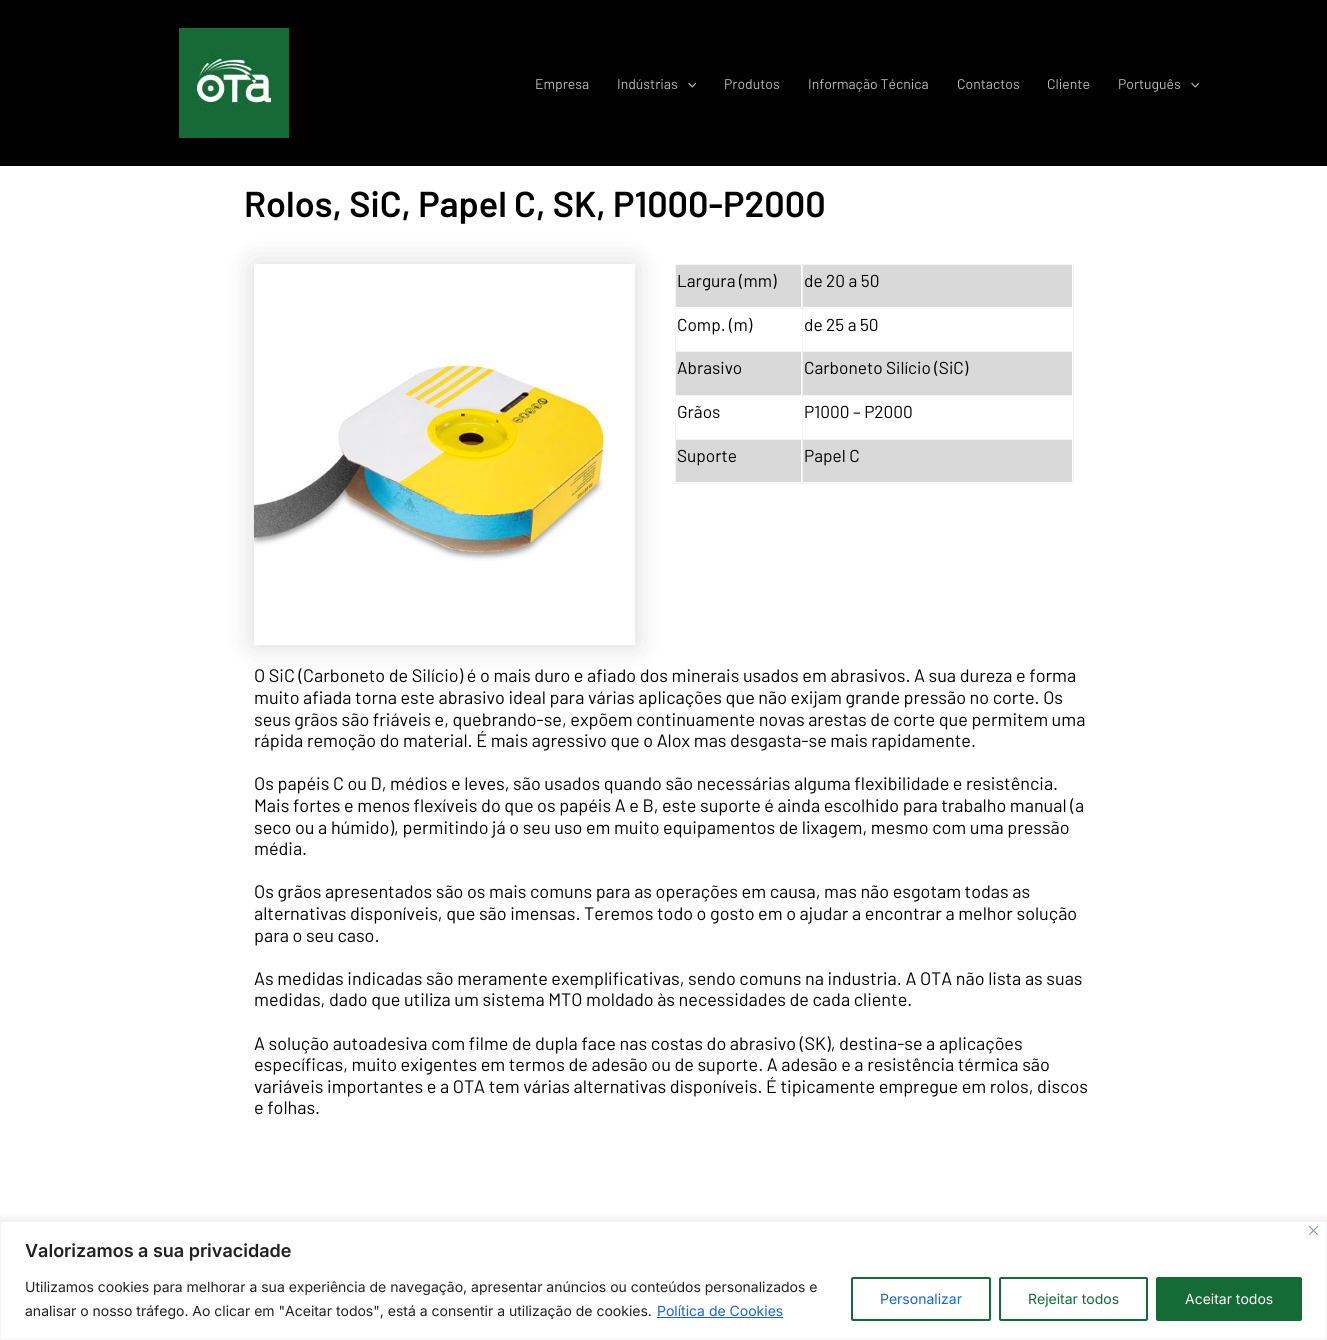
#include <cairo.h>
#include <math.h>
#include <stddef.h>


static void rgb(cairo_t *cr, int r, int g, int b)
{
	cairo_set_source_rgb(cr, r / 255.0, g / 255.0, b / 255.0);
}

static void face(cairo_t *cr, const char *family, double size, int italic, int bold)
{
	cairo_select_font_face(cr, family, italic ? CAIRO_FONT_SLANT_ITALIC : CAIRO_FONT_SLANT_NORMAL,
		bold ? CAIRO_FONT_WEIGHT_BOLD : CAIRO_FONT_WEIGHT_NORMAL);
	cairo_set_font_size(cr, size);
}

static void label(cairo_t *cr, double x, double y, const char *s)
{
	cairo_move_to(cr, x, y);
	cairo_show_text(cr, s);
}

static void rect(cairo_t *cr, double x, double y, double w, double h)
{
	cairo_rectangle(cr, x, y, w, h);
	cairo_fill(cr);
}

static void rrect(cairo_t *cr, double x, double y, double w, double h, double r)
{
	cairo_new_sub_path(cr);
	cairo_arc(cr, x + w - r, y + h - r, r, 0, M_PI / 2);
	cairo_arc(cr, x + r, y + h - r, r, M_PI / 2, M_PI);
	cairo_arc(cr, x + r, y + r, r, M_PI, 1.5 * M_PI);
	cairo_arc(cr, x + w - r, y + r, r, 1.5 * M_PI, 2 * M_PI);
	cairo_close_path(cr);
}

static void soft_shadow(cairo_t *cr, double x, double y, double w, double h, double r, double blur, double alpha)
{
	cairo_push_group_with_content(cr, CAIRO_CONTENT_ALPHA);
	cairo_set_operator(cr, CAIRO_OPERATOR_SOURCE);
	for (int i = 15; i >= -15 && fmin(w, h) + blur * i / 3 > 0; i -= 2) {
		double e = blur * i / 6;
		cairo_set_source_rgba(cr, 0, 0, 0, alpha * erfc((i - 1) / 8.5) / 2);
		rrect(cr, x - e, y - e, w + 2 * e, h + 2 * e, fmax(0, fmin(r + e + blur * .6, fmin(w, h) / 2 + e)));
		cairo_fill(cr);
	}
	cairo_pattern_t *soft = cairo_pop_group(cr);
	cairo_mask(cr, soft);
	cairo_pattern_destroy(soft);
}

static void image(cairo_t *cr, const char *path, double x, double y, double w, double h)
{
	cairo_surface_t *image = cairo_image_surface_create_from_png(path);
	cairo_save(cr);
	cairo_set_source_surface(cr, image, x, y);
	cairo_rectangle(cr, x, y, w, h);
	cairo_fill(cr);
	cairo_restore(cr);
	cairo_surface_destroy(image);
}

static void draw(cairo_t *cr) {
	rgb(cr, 255, 255, 255);
	cairo_paint(cr);
	rgb(cr, 0, 0, 0);
	rect(cr, 0, 0, 1327, 166);
	image(cr, "image0.png", 179, 28, 110, 110);
	face(cr, "Barlow", 14, 0, 0);
	rgb(cr, 184, 186, 188);
	label(cr, 535, 89, "Empresa");
	label(cr, 617, 89, "Indústrias");
	image(cr, "image1.png", 688, 82, 8, 6);
	label(cr, 724, 89, "Produtos");
	label(cr, 808, 89, "Informação Técnica");
	label(cr, 957, 89, "Contactos");
	label(cr, 1047, 89, "Cliente");
	label(cr, 1118, 89, "Português");
	image(cr, "image2.png", 1191, 82, 9, 6);
	face(cr, "Barlow SemiBold", 36, 0, 0);
	rgb(cr, 0, 0, 0);
	label(cr, 244, 217, "Rolos, SiC, Papel C, SK, P1000-P2000");
	rgb(cr, 242, 245, 247);
	rect(cr, 675, 264, 399, 1);
	rect(cr, 675, 264, 1, 220);
	rgb(cr, 217, 217, 217);
	rect(cr, 676, 265, 125, 42);
	rgb(cr, 242, 245, 247);
	rect(cr, 1073, 264, 1, 220);
	rect(cr, 802, 483, 272, 1);
	rect(cr, 802, 439, 1, 45);
	rect(cr, 802, 439, 272, 1);
	rect(cr, 802, 395, 1, 45);
	rect(cr, 802, 395, 272, 1);
	rect(cr, 802, 351, 1, 45);
	rect(cr, 802, 351, 272, 1);
	rect(cr, 802, 308, 1, 44);
	rect(cr, 802, 308, 272, 1);
	rect(cr, 802, 264, 1, 45);
	rect(cr, 675, 308, 128, 1);
	rect(cr, 675, 351, 128, 1);
	rgb(cr, 217, 217, 217);
	rect(cr, 676, 352, 125, 43);
	rgb(cr, 242, 245, 247);
	rect(cr, 675, 395, 128, 1);
	rect(cr, 675, 439, 128, 1);
	rgb(cr, 217, 217, 217);
	rect(cr, 676, 440, 125, 42);
	rgb(cr, 242, 245, 247);
	rect(cr, 675, 483, 128, 1);
	cairo_save(cr);
	cairo_set_fill_rule(cr, CAIRO_FILL_RULE_EVEN_ODD);
	cairo_new_path(cr);
	cairo_move_to(cr, 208, 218);
	cairo_line_to(cr, 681, 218);
	cairo_line_to(cr, 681, 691);
	cairo_line_to(cr, 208, 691);
	cairo_close_path(cr);
	cairo_move_to(cr, 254, 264);
	cairo_line_to(cr, 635, 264);
	cairo_line_to(cr, 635, 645);
	cairo_line_to(cr, 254, 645);
	cairo_close_path(cr);
	cairo_clip(cr);
	rgb(cr, 0, 0, 0);
	soft_shadow(cr, 254, 264, 381, 381, 0, 15, 0.15);
	cairo_restore(cr);
	image(cr, "image3.png", 254, 365, 353, 196);
	face(cr, "Barlow", 17.25, 0, 0);
	rgb(cr, 0, 0, 0);
	label(cr, 677, 287, "Largura (mm)");
	rgb(cr, 217, 217, 217);
	rect(cr, 803, 265, 269, 42);
	rgb(cr, 0, 0, 0);
	label(cr, 804, 287, "de 20 a 50");
	label(cr, 677, 331, "Comp. (m)");
	label(cr, 804, 331, "de 25 a 50");
	label(cr, 677, 374, "Abrasivo");
	rgb(cr, 217, 217, 217);
	rect(cr, 803, 352, 269, 43);
	rgb(cr, 0, 0, 0);
	label(cr, 804, 374, "Carboneto Silício (SiC)");
	label(cr, 677, 418, "Grãos");
	label(cr, 804, 418, "P1000 – P2000");
	label(cr, 677, 462, "Suporte");
	rgb(cr, 217, 217, 217);
	rect(cr, 803, 440, 269, 42);
	rgb(cr, 0, 0, 0);
	label(cr, 804, 462, "Papel C");
	face(cr, "Barlow", 18, 0, 0);
	label(cr, 254, 682, "O SiC (Carboneto de Silício) é o mais duro e afiado dos minerais usados em abrasivos. A sua dureza e forma");
	label(cr, 254, 704, "muito afiada torna este abrasivo ideal para várias aplicações que não exijam grande pressão no corte. Os");
	label(cr, 254, 726, "seus grãos são friáveis e, quebrando-se, expõem continuamente novas arestas de corte que permitem uma");
	label(cr, 254, 747, "rápida remoção do material. É mais agressivo que o Alox mas desgasta-se mais rapidamente.");
	label(cr, 254, 790, "Os papéis C ou D, médios e leves, são usados quando são necessárias alguma flexibilidade e resistência.");
	label(cr, 254, 812, "Mais fortes e menos flexíveis do que os papéis A e B, este suporte é ainda escolhido para trabalho manual (a");
	label(cr, 254, 834, "seco ou a húmido), permitindo já o seu uso em muito equipamentos de lixagem, mesmo com uma pressão");
	label(cr, 254, 855, "média.");
	label(cr, 254, 898, "Os grãos apresentados são os mais comuns para as operações em causa, mas não esgotam todas as");
	label(cr, 254, 920, "alternativas disponíveis, que são imensas. Teremos todo o gosto em o ajudar a encontrar a melhor solução");
	label(cr, 254, 942, "para o seu caso.");
	label(cr, 254, 985, "As medidas indicadas são meramente exemplificativas, sendo comuns na industria. A OTA não lista as suas");
	label(cr, 254, 1006, "medidas, dado que utiliza um sistema MTO moldado às necessidades de cada cliente.");
	label(cr, 254, 1050, "A solução autoadesiva com filme de dupla face nas costas do abrasivo (SK), destina-se a aplicações");
	label(cr, 254, 1071, "específicas, muito exigentes em termos de adesão ou de suporte. A adesão e a resistência térmica são");
	label(cr, 254, 1093, "variáveis importantes e a OTA tem várias alternativas disponíveis. É tipicamente empregue em rolos, discos");
	label(cr, 254, 1114, "e folhas.");
	cairo_save(cr);
	cairo_rectangle(cr, 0, 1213, 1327, 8);
	cairo_clip(cr);
	rgb(cr, 172, 171, 171);
	soft_shadow(cr, 0, 1220, 1327, 119, 0, 5, 0.3);
	cairo_restore(cr);
	cairo_rectangle(cr, 0.5, 1221.5, 1326, 118);
	rgb(cr, 244, 244, 244);
	cairo_set_line_width(cr, 1);
	cairo_stroke(cr);
	image(cr, "image4.png", 1309, 1226, 9, 9);
	face(cr, "Inter SemiBold", 18, 0, 0);
	rgb(cr, 33, 33, 33);
	label(cr, 25, 1257, "Valorizamos a sua privacidade");
	face(cr, "Inter", 14, 0, 0);
	label(cr, 25, 1292, "Utilizamos cookies para melhorar a sua experiência de navegação, apresentar anúncios ou conteúdos personalizados e");
	label(cr, 25, 1316, "analisar o nosso tráfego. Ao clicar em \"Aceitar todos\", está a consentir a utilização de cookies.");
	rgb(cr, 24, 99, 220);
	label(cr, 657, 1316, "Política de Cookies");
	rect(cr, 657, 1317, 126, 1);
	rrect(cr, 852, 1278, 138, 42, 1);
	rgb(cr, 21, 107, 54);
	cairo_set_line_width(cr, 2);
	cairo_stroke(cr);
	rgb(cr, 24, 99, 220);
	label(cr, 880, 1304, "Personalizar");
	rrect(cr, 1000, 1278, 147, 42, 1);
	rgb(cr, 21, 107, 54);
	cairo_stroke(cr);
	label(cr, 1028, 1304, "Rejeitar todos");
	rrect(cr, 1157, 1278, 144, 42, 1);
	cairo_fill_preserve(cr);
	cairo_stroke(cr);
	rgb(cr, 255, 255, 255);
	label(cr, 1185, 1304, "Aceitar todos");
}

int main(void) {
	cairo_surface_t *surface = cairo_image_surface_create(CAIRO_FORMAT_RGB24, 1327, 1340);
	cairo_t *cr = cairo_create(surface);
	cairo_font_options_t *options = cairo_font_options_create();
	cairo_font_options_set_hint_metrics(options, CAIRO_HINT_METRICS_OFF);
	cairo_font_options_set_hint_style(options, CAIRO_HINT_STYLE_NONE);
	cairo_set_font_options(cr, options);
	cairo_set_miter_limit(cr, 4);
	draw(cr);
	cairo_surface_write_to_png(surface, "render.png");
	cairo_font_options_destroy(options);
	cairo_destroy(cr);
	cairo_surface_destroy(surface);
	return 0;
}
